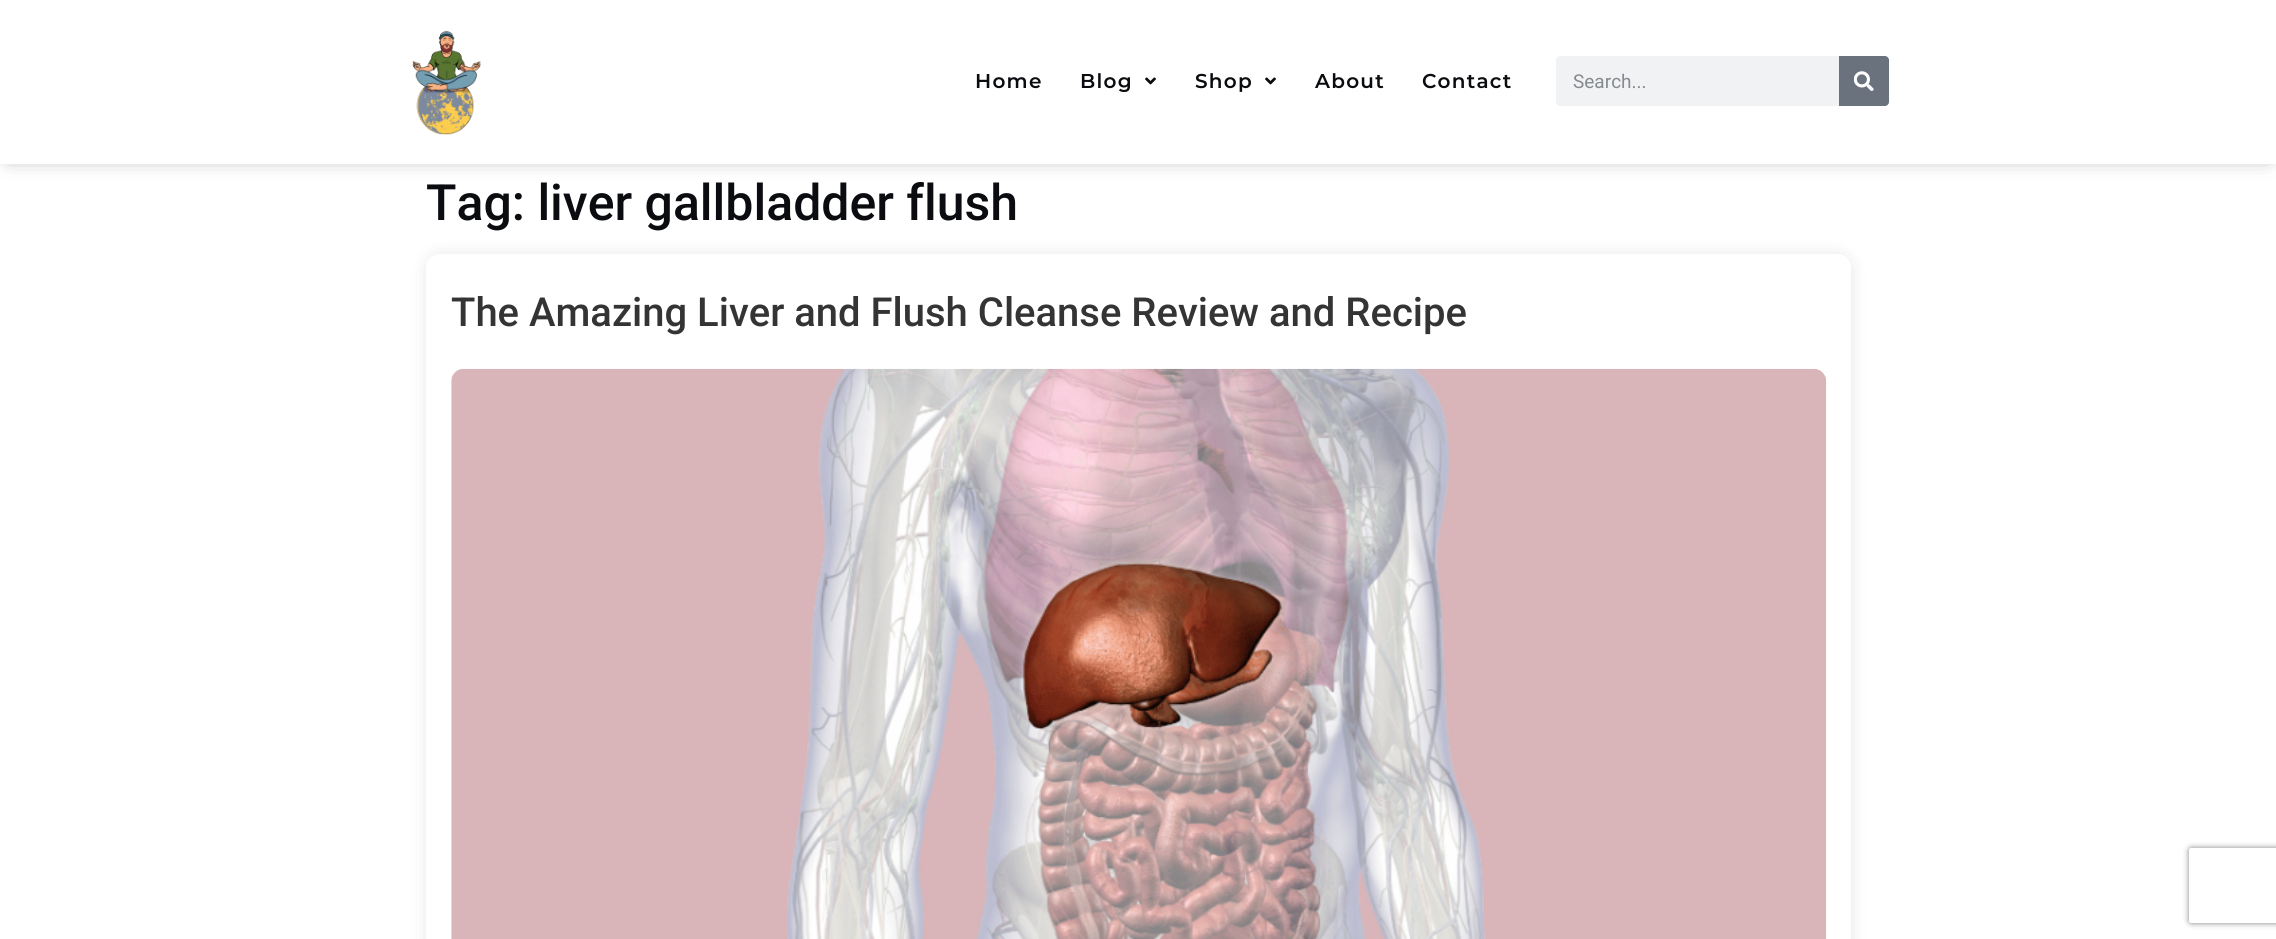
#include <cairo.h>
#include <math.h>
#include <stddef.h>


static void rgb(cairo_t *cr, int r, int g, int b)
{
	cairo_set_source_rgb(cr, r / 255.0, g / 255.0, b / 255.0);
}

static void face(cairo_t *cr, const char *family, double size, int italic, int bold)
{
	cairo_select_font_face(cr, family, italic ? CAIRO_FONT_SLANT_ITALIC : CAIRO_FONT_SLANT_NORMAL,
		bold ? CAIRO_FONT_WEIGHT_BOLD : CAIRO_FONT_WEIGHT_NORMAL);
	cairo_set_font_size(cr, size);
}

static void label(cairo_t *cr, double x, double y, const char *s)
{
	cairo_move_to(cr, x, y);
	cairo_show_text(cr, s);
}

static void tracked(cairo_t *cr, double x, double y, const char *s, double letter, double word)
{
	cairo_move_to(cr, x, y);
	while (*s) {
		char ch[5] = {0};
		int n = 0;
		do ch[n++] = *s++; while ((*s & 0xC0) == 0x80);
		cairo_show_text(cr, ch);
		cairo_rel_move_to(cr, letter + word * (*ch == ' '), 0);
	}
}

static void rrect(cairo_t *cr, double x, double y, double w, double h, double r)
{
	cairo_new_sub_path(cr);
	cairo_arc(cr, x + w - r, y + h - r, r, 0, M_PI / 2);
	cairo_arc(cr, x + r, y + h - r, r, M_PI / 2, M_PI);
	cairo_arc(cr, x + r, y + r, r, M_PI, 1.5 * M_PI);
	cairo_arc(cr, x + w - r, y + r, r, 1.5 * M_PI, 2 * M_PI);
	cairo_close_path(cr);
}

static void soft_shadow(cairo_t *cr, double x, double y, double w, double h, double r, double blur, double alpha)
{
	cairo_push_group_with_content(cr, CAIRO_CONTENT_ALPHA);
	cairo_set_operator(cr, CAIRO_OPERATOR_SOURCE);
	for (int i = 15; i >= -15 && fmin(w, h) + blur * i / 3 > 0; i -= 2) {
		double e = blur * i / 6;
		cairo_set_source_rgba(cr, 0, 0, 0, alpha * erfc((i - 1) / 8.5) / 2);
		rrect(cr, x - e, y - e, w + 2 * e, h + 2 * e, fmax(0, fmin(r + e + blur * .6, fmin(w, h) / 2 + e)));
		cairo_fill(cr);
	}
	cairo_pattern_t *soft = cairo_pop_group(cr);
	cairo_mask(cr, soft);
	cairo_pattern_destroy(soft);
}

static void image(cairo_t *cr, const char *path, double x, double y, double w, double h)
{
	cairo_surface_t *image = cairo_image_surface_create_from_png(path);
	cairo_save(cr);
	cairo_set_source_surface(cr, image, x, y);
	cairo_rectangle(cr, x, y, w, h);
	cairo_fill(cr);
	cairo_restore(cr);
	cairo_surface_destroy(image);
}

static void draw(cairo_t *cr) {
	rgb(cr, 255, 255, 255);
	cairo_paint(cr);
	cairo_save(cr);
	cairo_set_fill_rule(cr, CAIRO_FILL_RULE_EVEN_ODD);
	cairo_new_path(cr);
	cairo_move_to(cr, 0, 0);
	cairo_line_to(cr, 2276, 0);
	cairo_line_to(cr, 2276, 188);
	cairo_line_to(cr, 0, 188);
	cairo_close_path(cr);
	cairo_move_to(cr, 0, 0);
	cairo_line_to(cr, 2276, 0);
	cairo_line_to(cr, 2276, 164);
	cairo_line_to(cr, 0, 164);
	cairo_close_path(cr);
	cairo_clip(cr);
	rgb(cr, 0, 0, 0);
	soft_shadow(cr, 9, 9, 2259, 146, 0, 10.5, 0.5);
	cairo_restore(cr);
	image(cr, "image0.png", 412, 30, 69, 105);
	face(cr, "Montserrat SemiBold", 20, 0, 0);
	rgb(cr, 10, 12, 15);
	tracked(cr, 975, 88, "Home", 1.25, 0);
	tracked(cr, 1080, 88, "Blog", 1.25, 0);
	image(cr, "image1.png", 1145, 77, 11, 8);
	tracked(cr, 1195, 88, "Shop", 1.25, 0);
	image(cr, "image1.png", 1265, 77, 11, 8);
	tracked(cr, 1315, 88, "About", 1.25, 0);
	tracked(cr, 1422, 88, "Contact", 1.25, 0);
	rgb(cr, 241, 242, 243);
	rrect(cr, 1556, 56, 333, 50, 4);
	cairo_fill(cr);
	face(cr, "Roboto", 19, 0, 0);
	rgb(cr, 134, 138, 142);
	label(cr, 1573, 88, "Search...");
	rgb(cr, 105, 114, 125);
	cairo_new_path(cr);
	cairo_move_to(cr, 1839, 56);
	cairo_line_to(cr, 1885, 56);
	cairo_curve_to(cr, 1887, 56, 1889, 58, 1889, 60);
	cairo_line_to(cr, 1889, 102);
	cairo_curve_to(cr, 1889, 104, 1887, 106, 1885, 106);
	cairo_line_to(cr, 1839, 106);
	cairo_close_path(cr);
	cairo_fill(cr);
	image(cr, "image2.png", 1854, 71, 20, 20);
	cairo_save(cr);
	cairo_set_fill_rule(cr, CAIRO_FILL_RULE_EVEN_ODD);
	cairo_new_path(cr);
	cairo_move_to(cr, 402, 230);
	cairo_line_to(cr, 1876, 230);
	cairo_line_to(cr, 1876, 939);
	cairo_line_to(cr, 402, 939);
	cairo_close_path(cr);
	cairo_move_to(cr, 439, 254);
	cairo_line_to(cr, 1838, 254);
	cairo_curve_to(cr, 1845, 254, 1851, 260, 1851, 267);
	cairo_line_to(cr, 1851, 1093);
	cairo_curve_to(cr, 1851, 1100, 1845, 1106, 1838, 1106);
	cairo_line_to(cr, 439, 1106);
	cairo_curve_to(cr, 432, 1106, 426, 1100, 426, 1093);
	cairo_line_to(cr, 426, 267);
	cairo_curve_to(cr, 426, 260, 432, 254, 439, 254);
	cairo_close_path(cr);
	cairo_clip(cr);
	rgb(cr, 0, 0, 0);
	soft_shadow(cr, 435, 263, 1408, 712, 4, 10.5, 0.26);
	cairo_restore(cr);
	face(cr, "Roboto Medium", 50, 0, 0);
	rgb(cr, 10, 12, 15);
	label(cr, 426, 220, "Tag: liver gallbladder flush");
	face(cr, "Roboto Medium", 40, 0, 0);
	rgb(cr, 52, 52, 52);
	label(cr, 451, 326, "The Amazing Liver and Flush Cleanse Review and Recipe");
	image(cr, "image3.png", 451, 368, 1376, 571);
	cairo_save(cr);
	cairo_set_fill_rule(cr, CAIRO_FILL_RULE_EVEN_ODD);
	cairo_new_path(cr);
	cairo_move_to(cr, 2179, 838);
	cairo_line_to(cr, 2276, 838);
	cairo_line_to(cr, 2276, 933);
	cairo_line_to(cr, 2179, 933);
	cairo_close_path(cr);
	cairo_move_to(cr, 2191.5, 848);
	cairo_line_to(cr, 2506.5, 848);
	cairo_curve_to(cr, 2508, 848, 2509, 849, 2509, 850.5);
	cairo_line_to(cr, 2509, 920.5);
	cairo_curve_to(cr, 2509, 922, 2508, 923, 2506.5, 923);
	cairo_line_to(cr, 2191.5, 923);
	cairo_curve_to(cr, 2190, 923, 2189, 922, 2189, 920.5);
	cairo_line_to(cr, 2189, 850.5);
	cairo_curve_to(cr, 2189, 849, 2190, 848, 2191.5, 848);
	cairo_close_path(cr);
	cairo_clip(cr);
	rgb(cr, 128, 128, 128);
	soft_shadow(cr, 2189, 848, 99, 75, 2.5, 3, 1);
	cairo_restore(cr);
}

int main(void) {
	cairo_surface_t *surface = cairo_image_surface_create(CAIRO_FORMAT_RGB24, 2276, 939);
	cairo_t *cr = cairo_create(surface);
	cairo_font_options_t *options = cairo_font_options_create();
	cairo_font_options_set_hint_metrics(options, CAIRO_HINT_METRICS_OFF);
	cairo_font_options_set_hint_style(options, CAIRO_HINT_STYLE_NONE);
	cairo_set_font_options(cr, options);
	cairo_set_miter_limit(cr, 4);
	draw(cr);
	cairo_surface_write_to_png(surface, "render.png");
	cairo_font_options_destroy(options);
	cairo_destroy(cr);
	cairo_surface_destroy(surface);
	return 0;
}
